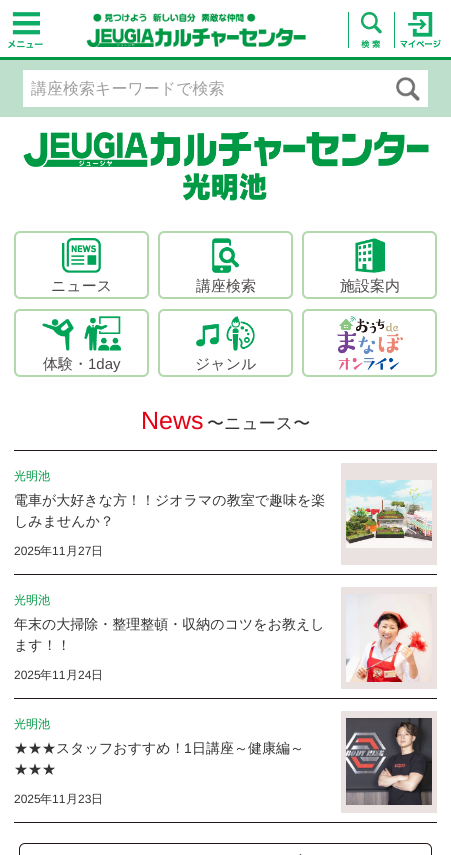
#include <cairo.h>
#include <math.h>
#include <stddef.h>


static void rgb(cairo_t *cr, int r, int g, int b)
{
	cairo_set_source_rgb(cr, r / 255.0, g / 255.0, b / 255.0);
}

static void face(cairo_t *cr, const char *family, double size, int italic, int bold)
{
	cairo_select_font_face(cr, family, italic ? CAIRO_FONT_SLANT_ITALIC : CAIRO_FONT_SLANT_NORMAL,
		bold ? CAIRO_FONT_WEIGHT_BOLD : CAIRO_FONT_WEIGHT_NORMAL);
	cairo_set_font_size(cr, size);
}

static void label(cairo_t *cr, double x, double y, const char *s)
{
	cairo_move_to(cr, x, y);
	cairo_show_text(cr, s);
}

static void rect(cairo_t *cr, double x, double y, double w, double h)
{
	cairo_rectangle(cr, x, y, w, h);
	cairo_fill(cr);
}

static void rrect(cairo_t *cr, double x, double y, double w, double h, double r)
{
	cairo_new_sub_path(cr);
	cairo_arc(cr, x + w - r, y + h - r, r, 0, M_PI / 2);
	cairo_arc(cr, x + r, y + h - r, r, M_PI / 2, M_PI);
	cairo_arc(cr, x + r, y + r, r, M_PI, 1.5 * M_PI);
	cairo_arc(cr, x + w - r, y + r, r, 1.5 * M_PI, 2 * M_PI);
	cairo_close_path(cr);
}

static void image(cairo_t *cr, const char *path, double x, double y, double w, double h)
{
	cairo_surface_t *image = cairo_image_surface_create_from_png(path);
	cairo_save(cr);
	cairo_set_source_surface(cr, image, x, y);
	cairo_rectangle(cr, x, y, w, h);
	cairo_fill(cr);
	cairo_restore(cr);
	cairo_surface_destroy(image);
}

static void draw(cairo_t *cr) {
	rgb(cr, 255, 255, 255);
	cairo_paint(cr);
	rgb(cr, 0, 152, 68);
	rect(cr, 0, 57, 451, 3);
	image(cr, "image0.png", 8, 12, 35, 36);
	image(cr, "image1.png", 86, 13, 220, 34);
	rgb(cr, 13, 172, 103);
	rect(cr, 348, 12, 1, 36);
	image(cr, "image2.png", 361, 12, 21, 36);
	rect(cr, 394, 12, 1, 36);
	image(cr, "image3.png", 400, 12, 41, 36);
	rgb(cr, 189, 223, 203);
	rect(cr, 0, 60, 451, 57);
	rgb(cr, 255, 255, 255);
	rect(cr, 23, 70, 405, 37);
	cairo_save(cr);
	cairo_rectangle(cr, 31, 79, 357, 21);
	cairo_clip(cr);
	face(cr, "WenQuanYi Zen Hei Medium", 16, 0, 0);
	rgb(cr, 158, 158, 159);
	label(cr, 31, 94, "講座検索キーワードで検索");
	cairo_restore(cr);
	image(cr, "image4.png", 396, 77, 24, 24);
	image(cr, "image5.png", 23, 132, 406, 69);
	rrect(cr, 15, 232, 133, 66, 5);
	rgb(cr, 178, 216, 172);
	cairo_stroke(cr);
	image(cr, "image6.png", 62, 238, 39, 35);
	face(cr, "WenQuanYi Zen Hei Medium", 15, 0, 0);
	rgb(cr, 76, 73, 72);
	label(cr, 51, 291, "ニュース");
	rrect(cr, 159, 232, 133, 66, 5);
	rgb(cr, 178, 216, 172);
	cairo_stroke(cr);
	image(cr, "image7.png", 212, 238, 27, 35);
	rgb(cr, 76, 73, 72);
	label(cr, 196, 291, "講座検索");
	rrect(cr, 303, 232, 133, 66, 5);
	rgb(cr, 178, 216, 172);
	cairo_stroke(cr);
	image(cr, "image8.png", 355, 238, 30, 35);
	rgb(cr, 76, 73, 72);
	label(cr, 340, 291, "施設案内");
	rrect(cr, 15, 310, 133, 66, 5);
	rgb(cr, 178, 216, 172);
	cairo_stroke(cr);
	image(cr, "image9.png", 42, 316, 79, 35);
	rgb(cr, 76, 73, 72);
	label(cr, 43, 369, "体験・");
	face(cr, "Liberation Sans", 15, 0, 0);
	label(cr, 88, 369, "1day");
	rrect(cr, 159, 310, 133, 66, 5);
	rgb(cr, 178, 216, 172);
	cairo_stroke(cr);
	image(cr, "image10.png", 196, 316, 59, 35);
	face(cr, "WenQuanYi Zen Hei Medium", 15, 0, 0);
	rgb(cr, 76, 73, 72);
	label(cr, 195, 369, "ジャンル");
	rrect(cr, 303, 310, 133, 66, 5);
	rgb(cr, 178, 216, 172);
	cairo_stroke(cr);
	image(cr, "image11.png", 337, 316, 66, 54);
	face(cr, "Liberation Sans", 25, 0, 0);
	rgb(cr, 229, 0, 18);
	label(cr, 141, 429, "News");
	face(cr, "WenQuanYi Zen Hei Medium", 17, 0, 0);
	rgb(cr, 51, 51, 51);
	label(cr, 207, 429, "〜ニュース〜");
	rgb(cr, 35, 24, 21);
	rect(cr, 14, 450, 423, 1);
	rect(cr, 14, 574, 423, 1);
	face(cr, "WenQuanYi Zen Hei Medium", 12, 0, 0);
	rgb(cr, 0, 152, 68);
	label(cr, 14, 480, "光明池");
	face(cr, "WenQuanYi Zen Hei Medium", 14, 0, 0);
	rgb(cr, 51, 51, 51);
	label(cr, 14, 505, "電車が大好きな方！！ジオラマの教室で趣味を楽");
	label(cr, 14, 526, "しみませんか？");
	face(cr, "Liberation Sans", 12, 0, 0);
	label(cr, 14, 555, "2025");
	face(cr, "WenQuanYi Zen Hei Medium", 12, 0, 0);
	label(cr, 40, 555, "年");
	face(cr, "Liberation Sans", 12, 0, 0);
	label(cr, 52, 555, "11");
	face(cr, "WenQuanYi Zen Hei Medium", 12, 0, 0);
	label(cr, 66, 555, "月");
	face(cr, "Liberation Sans", 12, 0, 0);
	label(cr, 78, 555, "27");
	face(cr, "WenQuanYi Zen Hei Medium", 12, 0, 0);
	label(cr, 91, 555, "日");
	rgb(cr, 233, 226, 225);
	rect(cr, 341, 463, 96, 102);
	image(cr, "image12.png", 346, 480, 86, 68);
	rgb(cr, 35, 24, 21);
	rect(cr, 14, 698, 423, 1);
	rgb(cr, 0, 152, 68);
	label(cr, 14, 604, "光明池");
	face(cr, "WenQuanYi Zen Hei Medium", 14, 0, 0);
	rgb(cr, 51, 51, 51);
	label(cr, 14, 629, "年末の大掃除・整理整頓・収納のコツをお教えし");
	label(cr, 14, 650, "ます！！");
	face(cr, "Liberation Sans", 12, 0, 0);
	label(cr, 14, 679, "2025");
	face(cr, "WenQuanYi Zen Hei Medium", 12, 0, 0);
	label(cr, 40, 679, "年");
	face(cr, "Liberation Sans", 12, 0, 0);
	label(cr, 52, 679, "11");
	face(cr, "WenQuanYi Zen Hei Medium", 12, 0, 0);
	label(cr, 66, 679, "月");
	face(cr, "Liberation Sans", 12, 0, 0);
	label(cr, 78, 679, "24");
	face(cr, "WenQuanYi Zen Hei Medium", 12, 0, 0);
	label(cr, 91, 679, "日");
	rgb(cr, 233, 226, 225);
	rect(cr, 341, 587, 96, 102);
	image(cr, "image13.png", 346, 594, 86, 88);
	rgb(cr, 35, 24, 21);
	rect(cr, 14, 822, 423, 1);
	rgb(cr, 0, 152, 68);
	label(cr, 14, 728, "光明池");
	face(cr, "WenQuanYi Zen Hei Medium", 14, 0, 0);
	rgb(cr, 51, 51, 51);
	label(cr, 14, 753, "★★★スタッフおすすめ！");
	face(cr, "Liberation Sans", 14, 0, 0);
	label(cr, 184, 753, "1");
	face(cr, "WenQuanYi Zen Hei Medium", 14, 0, 0);
	label(cr, 192, 753, "日講座～健康編～");
	label(cr, 14, 774, "★★★");
	face(cr, "Liberation Sans", 12, 0, 0);
	label(cr, 14, 803, "2025");
	face(cr, "WenQuanYi Zen Hei Medium", 12, 0, 0);
	label(cr, 40, 803, "年");
	face(cr, "Liberation Sans", 12, 0, 0);
	label(cr, 52, 803, "11");
	face(cr, "WenQuanYi Zen Hei Medium", 12, 0, 0);
	label(cr, 66, 803, "月");
	face(cr, "Liberation Sans", 12, 0, 0);
	label(cr, 78, 803, "23");
	face(cr, "WenQuanYi Zen Hei Medium", 12, 0, 0);
	label(cr, 91, 803, "日");
	rgb(cr, 233, 226, 225);
	rect(cr, 341, 711, 96, 102);
	image(cr, "image14.png", 346, 718, 86, 87);
	rrect(cr, 19.5, 843.5, 412, 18, 5.5);
	rgb(cr, 35, 24, 21);
	cairo_set_line_width(cr, 1);
	cairo_stroke(cr);
	cairo_new_path(cr);
	cairo_move_to(cr, 300.5, 854);
	cairo_line_to(cr, 306, 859.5);
	cairo_line_to(cr, 304.5, 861);
	cairo_line_to(cr, 299, 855.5);
	cairo_close_path(cr);
	cairo_fill(cr);
}

int main(void) {
	cairo_surface_t *surface = cairo_image_surface_create(CAIRO_FORMAT_RGB24, 451, 855);
	cairo_t *cr = cairo_create(surface);
	cairo_font_options_t *options = cairo_font_options_create();
	cairo_font_options_set_hint_metrics(options, CAIRO_HINT_METRICS_OFF);
	cairo_font_options_set_hint_style(options, CAIRO_HINT_STYLE_NONE);
	cairo_set_font_options(cr, options);
	cairo_set_miter_limit(cr, 4);
	draw(cr);
	cairo_surface_write_to_png(surface, "render.png");
	cairo_font_options_destroy(options);
	cairo_destroy(cr);
	cairo_surface_destroy(surface);
	return 0;
}
